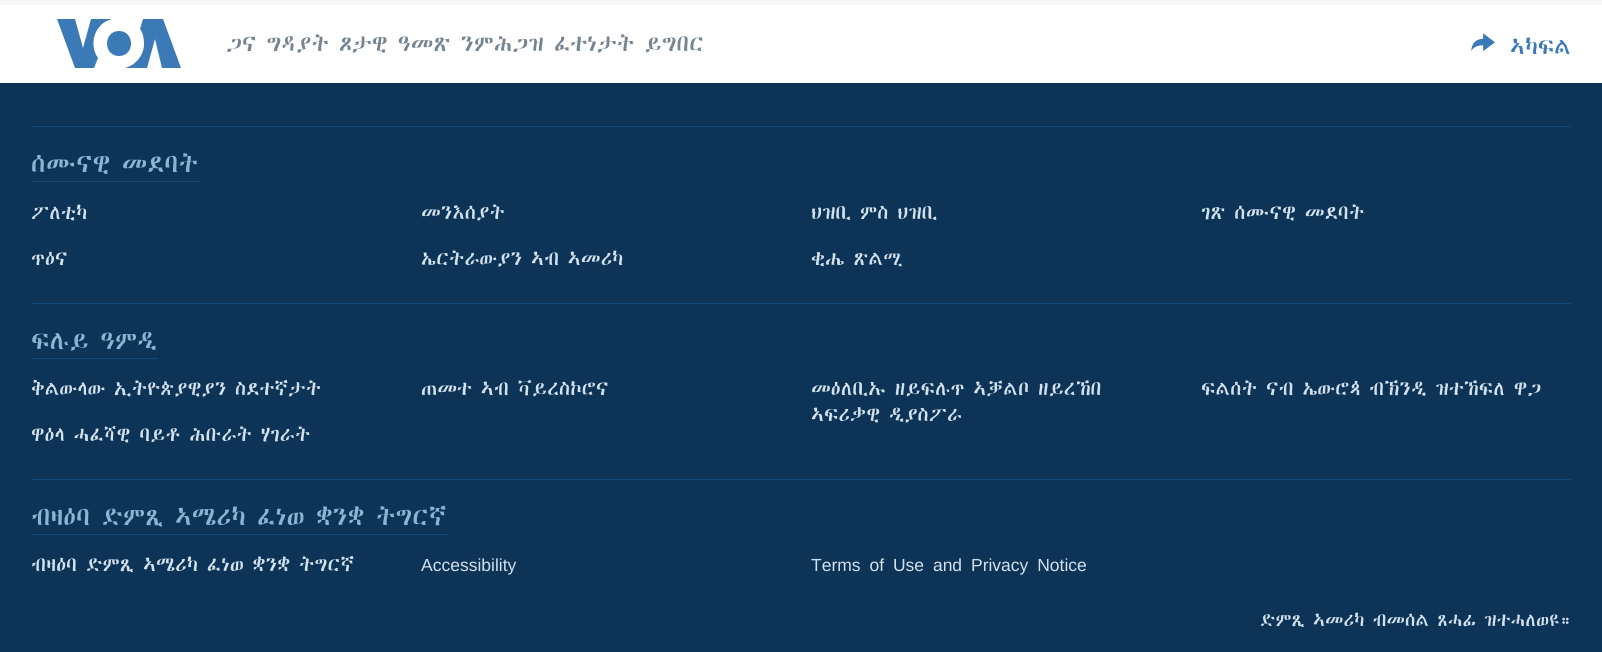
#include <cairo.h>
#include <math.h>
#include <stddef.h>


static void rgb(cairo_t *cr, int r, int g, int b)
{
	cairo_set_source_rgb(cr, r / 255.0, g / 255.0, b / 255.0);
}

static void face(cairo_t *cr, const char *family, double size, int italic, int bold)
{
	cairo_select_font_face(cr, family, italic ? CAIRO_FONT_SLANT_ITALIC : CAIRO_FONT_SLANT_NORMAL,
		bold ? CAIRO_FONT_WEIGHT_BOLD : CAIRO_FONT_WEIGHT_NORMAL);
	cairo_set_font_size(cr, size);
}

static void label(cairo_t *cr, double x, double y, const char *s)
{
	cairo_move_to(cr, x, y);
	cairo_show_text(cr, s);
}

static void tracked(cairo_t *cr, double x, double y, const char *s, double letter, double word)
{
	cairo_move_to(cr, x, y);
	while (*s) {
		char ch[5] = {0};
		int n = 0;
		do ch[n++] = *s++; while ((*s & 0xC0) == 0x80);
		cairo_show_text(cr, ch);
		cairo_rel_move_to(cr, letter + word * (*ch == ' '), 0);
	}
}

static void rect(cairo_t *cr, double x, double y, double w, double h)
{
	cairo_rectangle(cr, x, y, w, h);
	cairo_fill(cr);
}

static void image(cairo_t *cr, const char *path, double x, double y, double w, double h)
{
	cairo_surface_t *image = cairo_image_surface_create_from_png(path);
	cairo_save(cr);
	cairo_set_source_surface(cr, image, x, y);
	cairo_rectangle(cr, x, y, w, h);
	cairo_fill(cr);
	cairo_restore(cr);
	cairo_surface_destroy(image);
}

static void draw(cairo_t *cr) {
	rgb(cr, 13, 52, 86);
	cairo_paint(cr);
	rgb(cr, 255, 255, 255);
	rect(cr, 0, 5, 1602, 78);
	rgb(cr, 246, 247, 248);
	rect(cr, 0, 0, 1602, 5);
	rgb(cr, 59, 121, 183);
	cairo_new_path(cr);
	cairo_move_to(cr, 98, 58);
	cairo_line_to(cr, 94, 68);
	cairo_line_to(cr, 75, 68);
	cairo_line_to(cr, 57, 19);
	cairo_line_to(cr, 75, 19);
	cairo_line_to(cr, 83, 48);
	cairo_line_to(cr, 91, 19);
	cairo_line_to(cr, 112, 19);
	cairo_curve_to(cr, 95, 23, 88, 44, 98, 58);
	cairo_close_path(cr);
	cairo_move_to(cr, 119, 31);
	cairo_curve_to(cr, 103, 31, 103, 56, 119, 56);
	cairo_curve_to(cr, 135, 56, 135, 31, 119, 31);
	cairo_close_path(cr);
	cairo_move_to(cr, 144, 44);
	cairo_curve_to(cr, 144, 55, 136, 65, 125, 68);
	cairo_line_to(cr, 147, 68);
	cairo_line_to(cr, 155, 39);
	cairo_line_to(cr, 162, 68);
	cairo_line_to(cr, 181, 68);
	cairo_line_to(cr, 163, 19);
	cairo_line_to(cr, 143, 19);
	cairo_line_to(cr, 140, 29);
	cairo_curve_to(cr, 143, 33, 144, 38, 144, 44);
	cairo_close_path(cr);
	cairo_fill(cr);
	face(cr, "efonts", 20, 0, 0);
	rgb(cr, 118, 132, 146);
	label(cr, 226, 51, "ጋና ግዳያት ጾታዊ ዓመጽ ንምሕጋዝ ፈተነታት ይግበር");
	image(cr, "image0.png", 1471, 33, 24, 18);
	rgb(cr, 58, 121, 183);
	label(cr, 1510, 54, "ኣካፍል");
	rgb(cr, 19, 73, 118);
	rect(cr, 31, 126, 1540, 1);
	rect(cr, 31, 181, 168, 1);
	face(cr, "efonts", 22.5, 0, 0);
	rgb(cr, 141, 179, 212);
	label(cr, 31, 172, "ሰሙናዊ መደባት");
	face(cr, "efonts", 17.5, 0, 0);
	rgb(cr, 209, 225, 238);
	label(cr, 31, 219, "ፖለቲካ");
	label(cr, 421, 219, "መንእሰያት");
	label(cr, 811, 219, "ህዝቢ ምስ ህዝቢ");
	label(cr, 1201, 219, "ገጽ ሰሙናዊ መደባት");
	label(cr, 31, 265, "ጥዕና");
	label(cr, 421, 265, "ኤርትራውያን ኣብ ኣመሪካ");
	label(cr, 811, 265, "ቂሔ ጽልሚ");
	rgb(cr, 19, 73, 118);
	rect(cr, 31, 303, 1540, 1);
	rect(cr, 31, 358, 127, 1);
	face(cr, "efonts", 22.5, 0, 0);
	rgb(cr, 141, 179, 212);
	label(cr, 31, 349, "ፍሉይ ዓምዲ");
	face(cr, "efonts", 17.5, 0, 0);
	rgb(cr, 209, 225, 238);
	label(cr, 31, 395, "ቅልውላው ኢትዮጵያዊያን ስደተኛታት");
	label(cr, 421, 395, "ጠመተ ኣብ ቫይረስኮሮና");
	label(cr, 811, 395, "መዕለቢኡ ዘይፍሉጥ ኣቓልቦ ዘይረኸበ");
	label(cr, 811, 421, "ኣፍሪቃዊ ዲያስፖራ");
	label(cr, 1201, 395, "ፍልሰት ናብ ኤውሮጳ ብኽንዲ ዝተኸፍለ ዋጋ");
	label(cr, 31, 441, "ዋዕላ ሓፈሻዊ ባይቶ ሕቡራት ሃገራት");
	rgb(cr, 19, 73, 118);
	rect(cr, 31, 479, 1540, 1);
	rect(cr, 31, 534, 417, 1);
	face(cr, "efonts", 22.5, 0, 0);
	rgb(cr, 141, 179, 212);
	label(cr, 31, 525, "ብዛዕባ ድምጺ ኣሜሪካ ፈነወ ቋንቋ ትግርኛ");
	face(cr, "efonts", 17.5, 0, 0);
	rgb(cr, 209, 225, 238);
	label(cr, 31, 571, "ብዛዕባ ድምጺ ኣሜሪካ ፈነወ ቋንቋ ትግርኛ");
	face(cr, "Liberation Sans", 17.5, 0, 0);
	label(cr, 421, 571, "Accessibility");
	tracked(cr, 811, 571, "Terms of Use and Privacy Notice", 0, 4);
	face(cr, "efonts", 16.25, 0, 0);
	label(cr, 1260, 626, "ድምጺ ኣመሪካ ብመሰል ጸሓፊ ዝተሓለወዩ።");
}

int main(void) {
	cairo_surface_t *surface = cairo_image_surface_create(CAIRO_FORMAT_RGB24, 1602, 652);
	cairo_t *cr = cairo_create(surface);
	cairo_font_options_t *options = cairo_font_options_create();
	cairo_font_options_set_hint_metrics(options, CAIRO_HINT_METRICS_OFF);
	cairo_font_options_set_hint_style(options, CAIRO_HINT_STYLE_NONE);
	cairo_set_font_options(cr, options);
	cairo_set_miter_limit(cr, 4);
	draw(cr);
	cairo_surface_write_to_png(surface, "render.png");
	cairo_font_options_destroy(options);
	cairo_destroy(cr);
	cairo_surface_destroy(surface);
	return 0;
}
